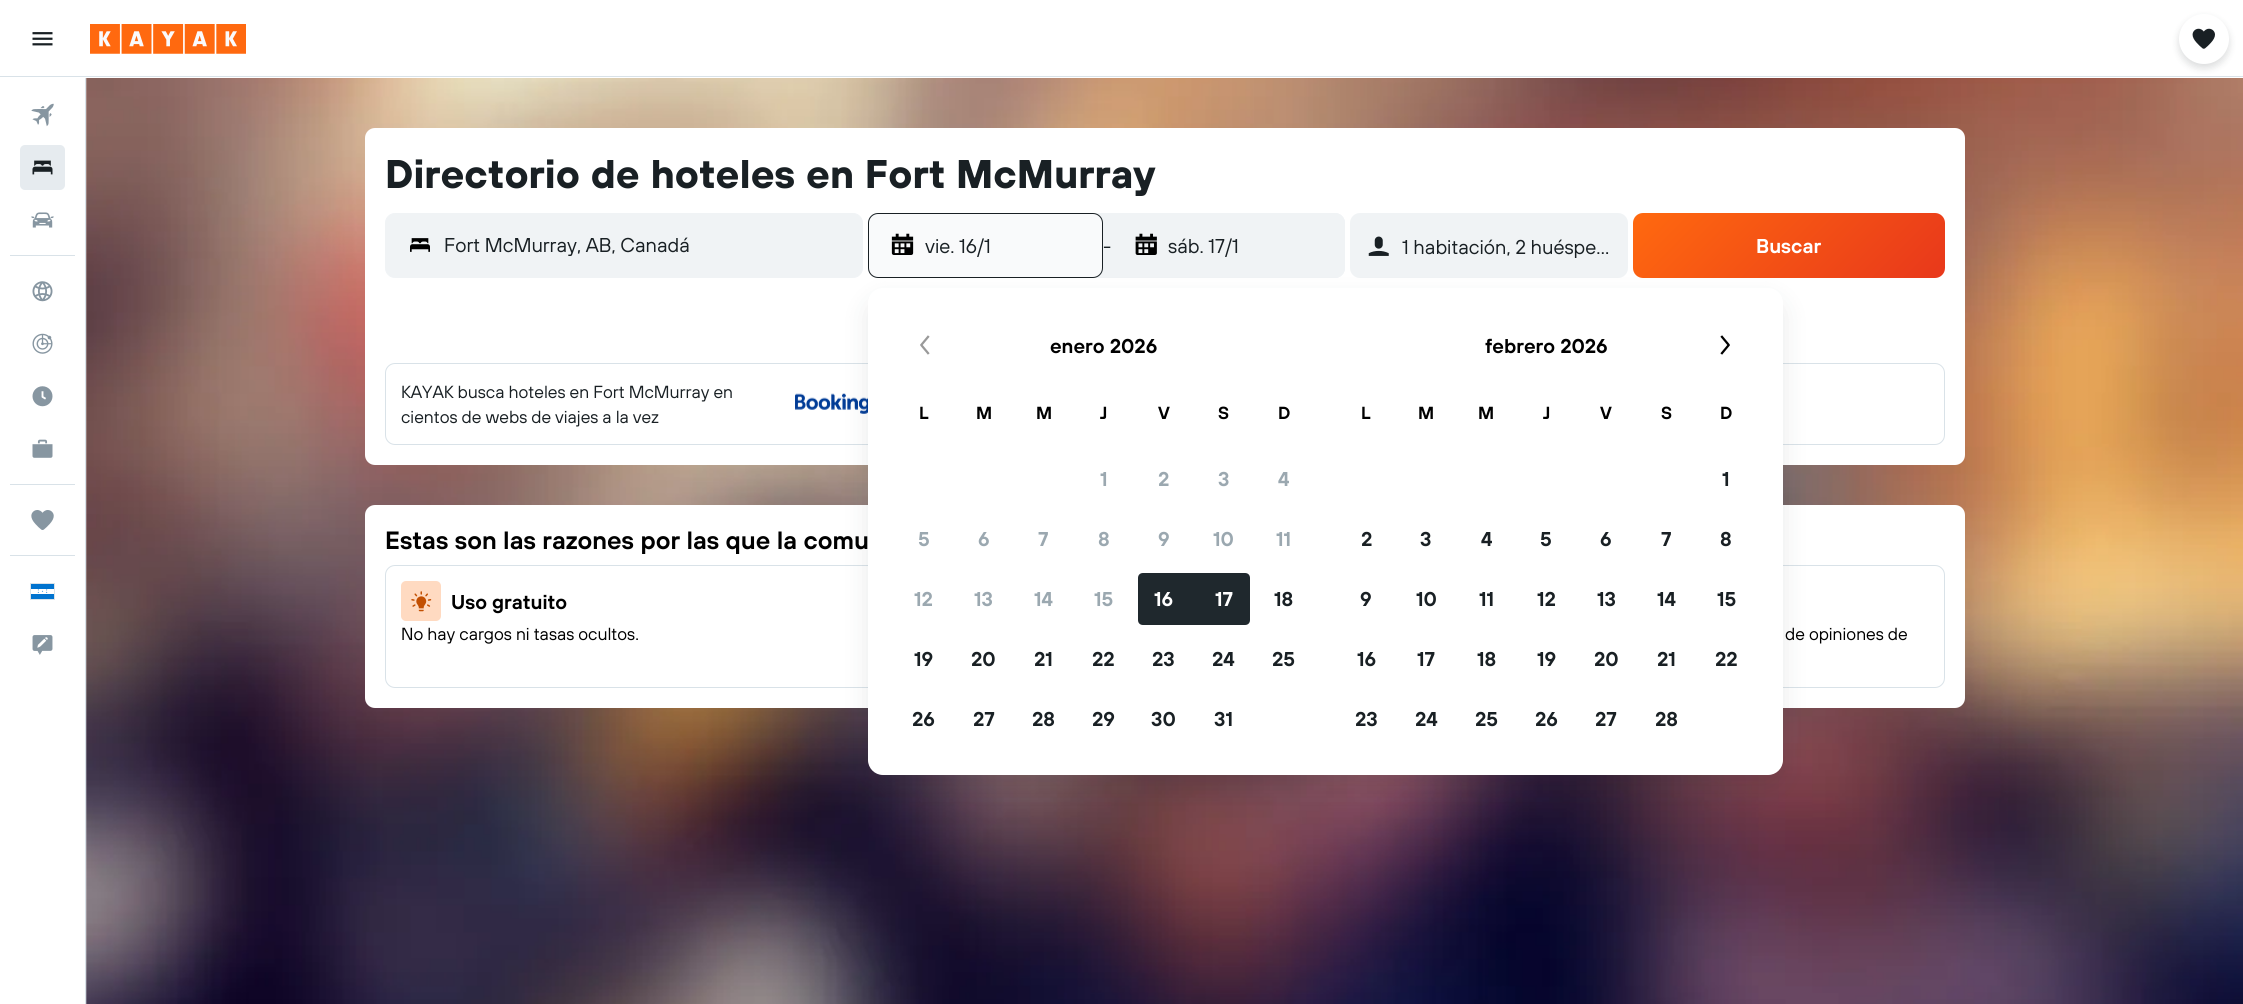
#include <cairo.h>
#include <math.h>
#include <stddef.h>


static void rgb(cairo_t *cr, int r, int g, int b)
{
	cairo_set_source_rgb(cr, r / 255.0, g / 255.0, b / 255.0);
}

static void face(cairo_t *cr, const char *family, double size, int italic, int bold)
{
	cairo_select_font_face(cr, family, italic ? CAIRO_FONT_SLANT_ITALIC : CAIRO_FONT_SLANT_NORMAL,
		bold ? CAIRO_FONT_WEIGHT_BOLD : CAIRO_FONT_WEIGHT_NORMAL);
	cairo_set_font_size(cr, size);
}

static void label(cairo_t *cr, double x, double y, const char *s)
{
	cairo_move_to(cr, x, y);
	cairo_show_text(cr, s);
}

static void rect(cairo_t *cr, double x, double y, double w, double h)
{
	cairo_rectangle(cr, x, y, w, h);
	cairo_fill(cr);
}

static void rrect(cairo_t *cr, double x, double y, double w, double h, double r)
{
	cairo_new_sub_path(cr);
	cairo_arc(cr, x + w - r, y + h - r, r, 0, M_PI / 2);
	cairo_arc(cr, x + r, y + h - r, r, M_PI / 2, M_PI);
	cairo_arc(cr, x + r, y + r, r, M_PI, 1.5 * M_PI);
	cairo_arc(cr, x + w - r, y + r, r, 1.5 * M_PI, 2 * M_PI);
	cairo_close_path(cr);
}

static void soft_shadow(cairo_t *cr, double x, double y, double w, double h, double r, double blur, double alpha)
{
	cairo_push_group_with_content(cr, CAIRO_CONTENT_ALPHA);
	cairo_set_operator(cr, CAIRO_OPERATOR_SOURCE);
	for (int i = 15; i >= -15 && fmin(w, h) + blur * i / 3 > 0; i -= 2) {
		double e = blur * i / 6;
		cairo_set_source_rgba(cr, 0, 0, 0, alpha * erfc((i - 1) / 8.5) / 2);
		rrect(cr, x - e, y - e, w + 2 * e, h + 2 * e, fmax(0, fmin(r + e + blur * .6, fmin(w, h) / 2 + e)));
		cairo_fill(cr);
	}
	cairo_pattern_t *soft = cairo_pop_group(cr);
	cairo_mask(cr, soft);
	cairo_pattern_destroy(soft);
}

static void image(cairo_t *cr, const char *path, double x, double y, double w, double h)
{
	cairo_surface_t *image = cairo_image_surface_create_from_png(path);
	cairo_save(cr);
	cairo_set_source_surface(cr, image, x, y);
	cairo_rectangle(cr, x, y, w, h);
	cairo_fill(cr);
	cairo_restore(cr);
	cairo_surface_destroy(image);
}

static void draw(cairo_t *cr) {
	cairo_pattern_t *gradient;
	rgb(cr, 255, 255, 255);
	cairo_paint(cr);
	rgb(cr, 217, 226, 232);
	rect(cr, 0, 76, 2243, 1);
	image(cr, "image0.png", 32, 32, 21, 14);
	image(cr, "image1.png", 90, 24, 156, 30);
	image(cr, "image13.png", 86, 78, 2157, 926);
	rgb(cr, 25, 32, 36);
	soft_shadow(cr, 2179, 18, 50, 50, 25, 4, 0.16);
	rgb(cr, 255, 255, 255);
	cairo_arc(cr, 2204, 39, 25, 0, 2 * M_PI);
	cairo_fill(cr);
	image(cr, "image2.png", 2192, 28, 23, 21);
	rgb(cr, 217, 226, 232);
	rect(cr, 85, 78, 1, 926);
	image(cr, "image3.png", 31, 103, 23, 24);
	rgb(cr, 230, 235, 239);
	rrect(cr, 20, 145, 45, 45, 5);
	cairo_fill(cr);
	image(cr, "image4.png", 32, 160, 21, 15);
	image(cr, "image5.png", 31, 212, 23, 16);
	rgb(cr, 217, 226, 232);
	rect(cr, 10, 255, 65, 1);
	image(cr, "image6.png", 32, 281, 21, 21);
	image(cr, "image7.png", 32, 333, 21, 21);
	image(cr, "image8.png", 32, 386, 21, 21);
	image(cr, "image9.png", 32, 439, 21, 19);
	rect(cr, 10, 484, 65, 1);
	image(cr, "image10.png", 31, 510, 23, 20);
	rect(cr, 10, 555, 65, 1);
	cairo_rectangle(cr, 30.5, 583.5, 24, 16);
	cairo_set_line_width(cr, 1);
	cairo_stroke(cr);
	image(cr, "image11.png", 31, 584, 23, 15);
	image(cr, "image12.png", 32, 635, 21, 20);
	rgb(cr, 255, 255, 255);
	rrect(cr, 365, 128, 1600, 337, 10);
	cairo_fill(cr);
	face(cr, "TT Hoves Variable", 40, 0, 1);
	rgb(cr, 25, 32, 36);
	label(cr, 385, 188, "Directorio de hoteles en Fort McMurray");
	rgb(cr, 240, 243, 245);
	rrect(cr, 385.5, 213.5, 477, 64, 9.5);
	cairo_fill_preserve(cr);
	cairo_stroke(cr);
	image(cr, "image14.png", 410, 238, 20, 14);
	face(cr, "TT Hoves Variable", 20, 0, 0);
	rgb(cr, 25, 32, 36);
	label(cr, 444, 252, "Fort McMurray, AB, Canadá");
	rgb(cr, 240, 243, 245);
	rrect(cr, 868, 213, 477, 65, 10);
	cairo_fill(cr);
	rgb(cr, 249, 250, 251);
	rrect(cr, 868.5, 213.5, 234, 64, 9.5);
	cairo_fill_preserve(cr);
	rgb(cr, 25, 32, 36);
	cairo_stroke(cr);
	image(cr, "image15.png", 891, 233, 23, 22);
	label(cr, 925, 253, "vie. 16/1");
	label(cr, 1103, 253, "-");
	rgb(cr, 240, 243, 245);
	rrect(cr, 1111, 213, 234, 65, 10);
	cairo_fill(cr);
	image(cr, "image16.png", 1135, 233, 22, 22);
	rgb(cr, 25, 32, 36);
	label(cr, 1168, 253, "sáb. 17/1");
	rgb(cr, 240, 243, 245);
	rrect(cr, 1350, 213, 278, 65, 10);
	cairo_fill(cr);
	image(cr, "image17.png", 1368, 236, 21, 20);
	rgb(cr, 25, 32, 36);
	label(cr, 1402, 254, "1 habitación, 2 huéspe…");
	gradient = cairo_pattern_create_linear(1694, 151, 1883, 339);
	cairo_pattern_add_color_stop_rgba(gradient, 0, 1, 0.412, 0.059, 1);
	cairo_pattern_add_color_stop_rgba(gradient, 1, 0.91, 0.22, 0.106, 1);
	cairo_set_source(cr, gradient);
	cairo_pattern_destroy(gradient);
	rrect(cr, 1633, 213, 312, 65, 10);
	cairo_fill(cr);
	face(cr, "TT Hoves Variable SemiBold", 20, 0, 0);
	rgb(cr, 255, 255, 255);
	label(cr, 1756, 253, "Buscar");
	rrect(cr, 385.5, 363.5, 1559, 81, 9.5);
	rgb(cr, 217, 226, 232);
	cairo_stroke(cr);
	face(cr, "TT Hoves Variable", 17.5, 0, 0);
	rgb(cr, 25, 32, 36);
	label(cr, 401, 398, "KAYAK busca hoteles en Fort McMurray en");
	label(cr, 401, 423, "cientos de webs de viajes a la vez");
	image(cr, "image18.png", 795, 393, 73, 21);
	rgb(cr, 255, 255, 255);
	rrect(cr, 365, 505, 1600, 203, 10);
	cairo_fill(cr);
	face(cr, "TT Hoves Variable SemiBold", 25, 0, 0);
	rgb(cr, 0, 0, 0);
	label(cr, 385, 549, "Estas son las razones por las que la comu");
	rrect(cr, 385.5, 565.5, 509, 122, 9.5);
	rgb(cr, 217, 226, 232);
	cairo_stroke(cr);
	rgb(cr, 255, 218, 193);
	rrect(cr, 401, 581, 40, 40, 5);
	cairo_fill(cr);
	image(cr, "image19.png", 411, 591, 21, 21);
	face(cr, "TT Hoves Variable SemiBold", 20, 0, 0);
	rgb(cr, 0, 0, 0);
	label(cr, 451, 609, "Uso gratuito");
	face(cr, "TT Hoves Variable", 17.5, 0, 0);
	label(cr, 401, 640, "No hay cargos ni tasas ocultos.");
	rrect(cr, 1435.5, 565.5, 509, 122, 9.5);
	rgb(cr, 217, 226, 232);
	cairo_stroke(cr);
	rgb(cr, 0, 0, 0);
	label(cr, 1785, 640, "de opiniones de");
	rgb(cr, 25, 32, 36);
	soft_shadow(cr, 868, 300, 915, 488, 15, 12.5, 0.1);
	rgb(cr, 255, 255, 255);
	rrect(cr, 868, 288, 915, 487, 15);
	cairo_fill(cr);
	image(cr, "image20.png", 920, 335, 10, 20);
	image(cr, "image21.png", 1720, 335, 10, 20);
	face(cr, "TT Hoves Variable SemiBold", 20, 0, 0);
	rgb(cr, 0, 0, 0);
	label(cr, 1050, 353, "enero 2026");
	face(cr, "TT Hoves Variable SemiBold", 17.5, 0, 0);
	label(cr, 919, 419, "L");
	label(cr, 976, 419, "M");
	label(cr, 1036, 419, "M");
	label(cr, 1100, 419, "J");
	label(cr, 1158, 419, "V");
	label(cr, 1218, 419, "S");
	label(cr, 1278, 419, "D");
	face(cr, "TT Hoves Variable SemiBold", 20, 0, 0);
	rgb(cr, 155, 168, 176);
	label(cr, 1100, 486, "1");
	label(cr, 1158, 486, "2");
	label(cr, 1218, 486, "3");
	label(cr, 1278, 486, "4");
	label(cr, 918, 546, "5");
	label(cr, 978, 546, "6");
	label(cr, 1038, 546, "7");
	label(cr, 1098, 546, "8");
	label(cr, 1158, 546, "9");
	label(cr, 1213, 546, "10");
	label(cr, 1276, 546, "11");
	label(cr, 914, 606, "12");
	label(cr, 974, 606, "13");
	label(cr, 1034, 606, "14");
	label(cr, 1094, 606, "15");
	rgb(cr, 31, 40, 45);
	cairo_new_path(cr);
	cairo_move_to(cr, 1143, 573);
	cairo_line_to(cr, 1194, 573);
	cairo_line_to(cr, 1194, 625);
	cairo_line_to(cr, 1143, 625);
	cairo_curve_to(cr, 1140, 625, 1138, 623, 1138, 620);
	cairo_line_to(cr, 1138, 578);
	cairo_curve_to(cr, 1138, 575, 1140, 573, 1143, 573);
	cairo_close_path(cr);
	cairo_fill(cr);
	rgb(cr, 255, 255, 255);
	label(cr, 1154, 606, "16");
	rgb(cr, 31, 40, 45);
	cairo_new_path(cr);
	cairo_move_to(cr, 1194, 573);
	cairo_line_to(cr, 1245, 573);
	cairo_curve_to(cr, 1248, 573, 1250, 575, 1250, 578);
	cairo_line_to(cr, 1250, 620);
	cairo_curve_to(cr, 1250, 623, 1248, 625, 1245, 625);
	cairo_line_to(cr, 1194, 625);
	cairo_close_path(cr);
	cairo_fill(cr);
	rgb(cr, 255, 255, 255);
	label(cr, 1215, 606, "17");
	rgb(cr, 25, 32, 36);
	label(cr, 1274, 606, "18");
	label(cr, 914, 666, "19");
	label(cr, 971, 666, "20");
	label(cr, 1034, 666, "21");
	label(cr, 1092, 666, "22");
	label(cr, 1152, 666, "23");
	label(cr, 1212, 666, "24");
	label(cr, 1272, 666, "25");
	label(cr, 912, 726, "26");
	label(cr, 973, 726, "27");
	label(cr, 1032, 726, "28");
	label(cr, 1092, 726, "29");
	label(cr, 1151, 726, "30");
	label(cr, 1214, 726, "31");
	rgb(cr, 0, 0, 0);
	label(cr, 1485, 353, "febrero 2026");
	face(cr, "TT Hoves Variable SemiBold", 17.5, 0, 0);
	label(cr, 1361, 419, "L");
	label(cr, 1418, 419, "M");
	label(cr, 1478, 419, "M");
	label(cr, 1543, 419, "J");
	label(cr, 1600, 419, "V");
	label(cr, 1661, 419, "S");
	label(cr, 1720, 419, "D");
	face(cr, "TT Hoves Variable SemiBold", 20, 0, 0);
	rgb(cr, 25, 32, 36);
	label(cr, 1722, 486, "1");
	label(cr, 1361, 546, "2");
	label(cr, 1420, 546, "3");
	label(cr, 1481, 546, "4");
	label(cr, 1540, 546, "5");
	label(cr, 1600, 546, "6");
	label(cr, 1661, 546, "7");
	label(cr, 1720, 546, "8");
	label(cr, 1360, 606, "9");
	label(cr, 1416, 606, "10");
	label(cr, 1479, 606, "11");
	label(cr, 1537, 606, "12");
	label(cr, 1597, 606, "13");
	label(cr, 1657, 606, "14");
	label(cr, 1717, 606, "15");
	label(cr, 1357, 666, "16");
	label(cr, 1417, 666, "17");
	label(cr, 1477, 666, "18");
	label(cr, 1537, 666, "19");
	label(cr, 1594, 666, "20");
	label(cr, 1657, 666, "21");
	label(cr, 1715, 666, "22");
	label(cr, 1355, 726, "23");
	label(cr, 1415, 726, "24");
	label(cr, 1475, 726, "25");
	label(cr, 1535, 726, "26");
	label(cr, 1595, 726, "27");
	label(cr, 1655, 726, "28");
}

int main(void) {
	cairo_surface_t *surface = cairo_image_surface_create(CAIRO_FORMAT_RGB24, 2243, 1004);
	cairo_t *cr = cairo_create(surface);
	cairo_font_options_t *options = cairo_font_options_create();
	cairo_font_options_set_hint_metrics(options, CAIRO_HINT_METRICS_OFF);
	cairo_font_options_set_hint_style(options, CAIRO_HINT_STYLE_NONE);
	cairo_set_font_options(cr, options);
	cairo_set_miter_limit(cr, 4);
	draw(cr);
	cairo_surface_write_to_png(surface, "render.png");
	cairo_font_options_destroy(options);
	cairo_destroy(cr);
	cairo_surface_destroy(surface);
	return 0;
}
